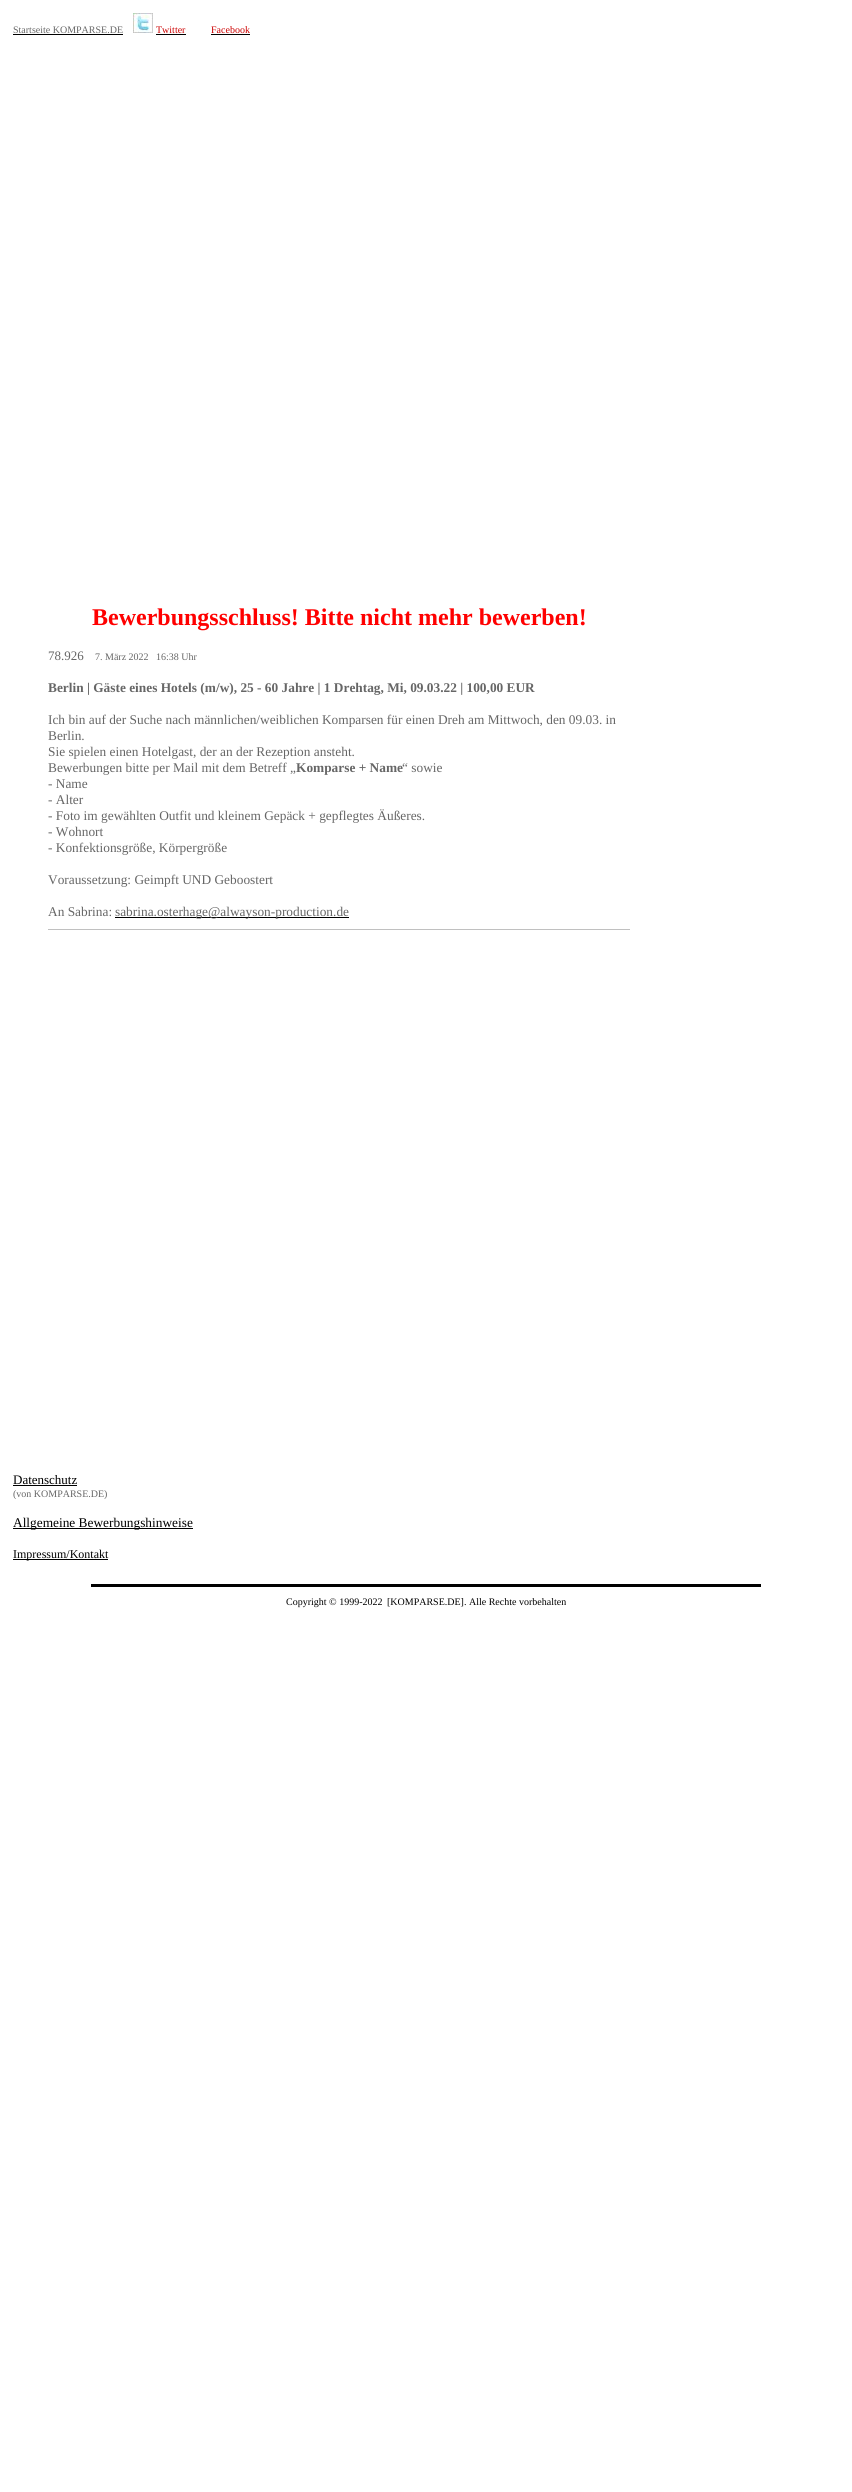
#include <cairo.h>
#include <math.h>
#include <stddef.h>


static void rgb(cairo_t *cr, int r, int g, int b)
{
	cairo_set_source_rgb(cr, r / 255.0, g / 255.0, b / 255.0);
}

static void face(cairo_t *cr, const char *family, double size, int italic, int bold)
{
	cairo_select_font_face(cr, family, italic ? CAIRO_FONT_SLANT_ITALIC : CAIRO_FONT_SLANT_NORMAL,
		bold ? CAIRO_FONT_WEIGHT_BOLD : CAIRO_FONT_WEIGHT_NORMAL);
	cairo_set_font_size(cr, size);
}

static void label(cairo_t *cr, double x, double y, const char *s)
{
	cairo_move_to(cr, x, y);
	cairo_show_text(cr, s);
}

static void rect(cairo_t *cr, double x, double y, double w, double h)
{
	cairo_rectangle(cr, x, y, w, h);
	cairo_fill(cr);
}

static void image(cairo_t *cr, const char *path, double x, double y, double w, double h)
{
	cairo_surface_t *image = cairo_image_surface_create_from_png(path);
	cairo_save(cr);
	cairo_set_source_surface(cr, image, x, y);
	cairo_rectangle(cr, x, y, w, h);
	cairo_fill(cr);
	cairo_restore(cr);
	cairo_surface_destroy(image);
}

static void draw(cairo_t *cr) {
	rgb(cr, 255, 255, 255);
	cairo_paint(cr);
	face(cr, "Liberation Serif", 10, 0, 0);
	rgb(cr, 102, 102, 102);
	label(cr, 13, 33, "Startseite KOMPARSE.DE");
	rgb(cr, 0, 0, 0);
	rect(cr, 13, 34, 110, 1);
	image(cr, "image0.png", 133, 13, 20, 20);
	rgb(cr, 204, 0, 0);
	label(cr, 156, 33, "Twitter");
	rgb(cr, 0, 0, 0);
	rect(cr, 156, 34, 30, 1);
	rgb(cr, 204, 0, 0);
	label(cr, 211, 33, "Facebook");
	rgb(cr, 0, 0, 0);
	rect(cr, 211, 34, 39, 1);
	face(cr, "Liberation Serif", 24, 0, 1);
	rgb(cr, 255, 0, 0);
	label(cr, 92, 625, "Bewerbungsschluss! Bitte nicht mehr bewerben!");
	face(cr, "Liberation Serif", 13, 0, 0);
	rgb(cr, 102, 102, 102);
	label(cr, 48, 660, "78.926");
	face(cr, "Liberation Serif", 10, 0, 0);
	label(cr, 95, 660, "7. März 2022");
	label(cr, 156, 660, "16:38 Uhr");
	face(cr, "Liberation Serif", 13.35, 0, 1);
	label(cr, 48, 692, "Berlin | Gäste eines Hotels (m/w), 25 - 60 Jahre | 1 Drehtag, Mi, 09.03.22 | 100,00 EUR");
	face(cr, "Liberation Serif", 13.35, 0, 0);
	label(cr, 48, 724, "Ich bin auf der Suche nach männlichen/weiblichen Komparsen für einen Dreh am Mittwoch, den 09.03. in");
	label(cr, 48, 740, "Berlin.");
	label(cr, 48, 756, "Sie spielen einen Hotelgast, der an der Rezeption ansteht.");
	label(cr, 48, 772, "Bewerbungen bitte per Mail mit dem Betreff „");
	face(cr, "Liberation Serif", 13.35, 0, 1);
	label(cr, 296, 772, "Komparse + Name");
	face(cr, "Liberation Serif", 13.35, 0, 0);
	label(cr, 402, 772, "“ sowie");
	label(cr, 48, 788, "- Name");
	label(cr, 48, 804, "- Alter");
	label(cr, 48, 820, "- Foto im gewählten Outfit und kleinem Gepäck + gepflegtes Äußeres.");
	label(cr, 48, 836, "- Wohnort");
	label(cr, 48, 852, "- Konfektionsgröße, Körpergröße");
	label(cr, 48, 884, "Voraussetzung: Geimpft UND Geboostert");
	label(cr, 48, 916, "An Sabrina:");
	rgb(cr, 0, 0, 0);
	rect(cr, 115, 917, 234, 1);
	rgb(cr, 102, 102, 102);
	label(cr, 115, 916, "sabrina.osterhage@alwayson-production.de");
	rgb(cr, 192, 192, 192);
	rect(cr, 48, 929, 582, 1);
	face(cr, "Liberation Serif", 13, 0, 0);
	rgb(cr, 0, 0, 0);
	label(cr, 13, 1484, "Datenschutz");
	rect(cr, 13, 1485, 64, 1);
	face(cr, "Liberation Serif", 10, 0, 0);
	rgb(cr, 102, 102, 102);
	label(cr, 13, 1497, "(von KOMPARSE.DE)");
	rgb(cr, 0, 0, 0);
	rect(cr, 13, 1528, 180, 1);
	face(cr, "Liberation Serif", 13.35, 0, 0);
	label(cr, 13, 1527, "Allgemeine Bewerbungshinweise");
	rect(cr, 13, 1559, 95, 1);
	face(cr, "Liberation Serif", 12, 0, 0);
	label(cr, 13, 1558, "Impressum/Kontakt");
	rect(cr, 91, 1584, 670, 3);
	face(cr, "Liberation Serif", 10, 0, 0);
	label(cr, 286, 1605, "Copyright © 1999-2022");
	label(cr, 387, 1605, "[KOMPARSE.DE]. Alle Rechte vorbehalten");
}

int main(void) {
	cairo_surface_t *surface = cairo_image_surface_create(CAIRO_FORMAT_RGB24, 852, 2492);
	cairo_t *cr = cairo_create(surface);
	cairo_font_options_t *options = cairo_font_options_create();
	cairo_font_options_set_hint_metrics(options, CAIRO_HINT_METRICS_OFF);
	cairo_font_options_set_hint_style(options, CAIRO_HINT_STYLE_NONE);
	cairo_set_font_options(cr, options);
	cairo_set_miter_limit(cr, 4);
	draw(cr);
	cairo_surface_write_to_png(surface, "render.png");
	cairo_font_options_destroy(options);
	cairo_destroy(cr);
	cairo_surface_destroy(surface);
	return 0;
}
